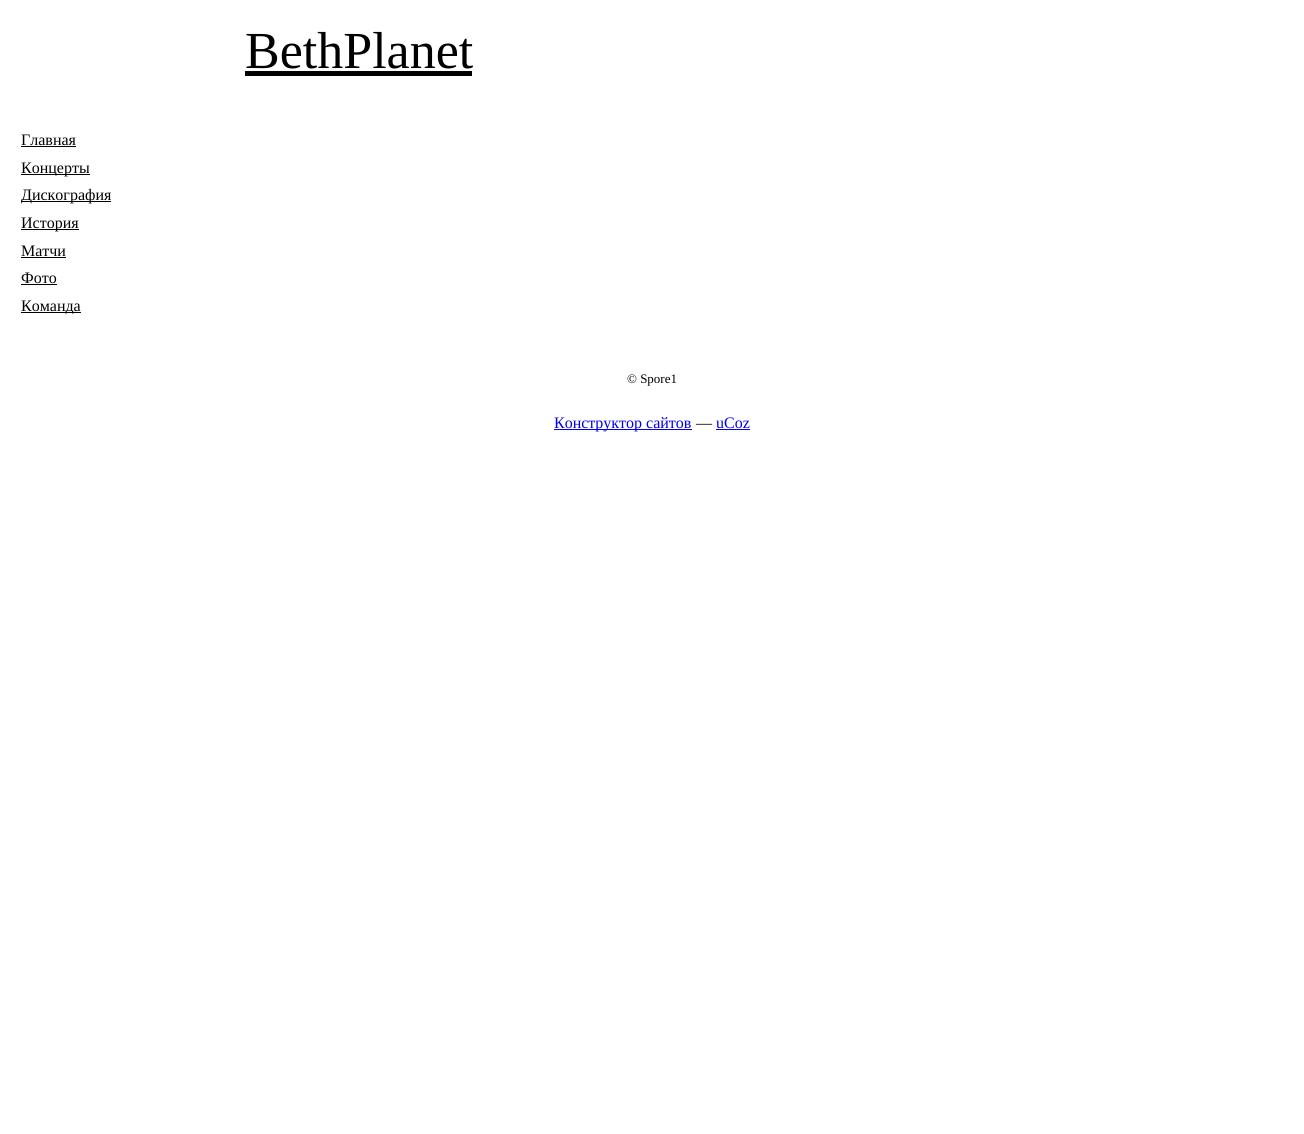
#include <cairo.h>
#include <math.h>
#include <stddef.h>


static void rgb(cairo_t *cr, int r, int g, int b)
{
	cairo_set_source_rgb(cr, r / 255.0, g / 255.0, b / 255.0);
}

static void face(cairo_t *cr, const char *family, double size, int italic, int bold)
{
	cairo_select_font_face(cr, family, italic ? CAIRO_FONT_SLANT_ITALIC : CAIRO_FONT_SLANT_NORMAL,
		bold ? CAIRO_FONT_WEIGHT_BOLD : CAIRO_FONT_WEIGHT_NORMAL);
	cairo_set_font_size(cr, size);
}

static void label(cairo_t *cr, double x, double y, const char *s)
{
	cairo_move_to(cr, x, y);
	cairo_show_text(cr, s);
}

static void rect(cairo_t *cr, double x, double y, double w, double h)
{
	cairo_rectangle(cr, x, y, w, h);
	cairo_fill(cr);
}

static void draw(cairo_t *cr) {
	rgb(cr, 255, 255, 255);
	cairo_paint(cr);
	face(cr, "Liberation Serif", 52, 0, 0);
	rgb(cr, 0, 0, 0);
	label(cr, 245, 68, "BethPlanet");
	rect(cr, 245, 71, 227, 5);
	face(cr, "Liberation Serif", 16, 0, 0);
	label(cr, 21, 145, "Главная");
	rect(cr, 21, 146, 55, 1);
	rect(cr, 21, 174, 69, 1);
	label(cr, 21, 173, "Концерты");
	rect(cr, 21, 201, 90, 1);
	label(cr, 21, 200, "Дискография");
	rect(cr, 21, 229, 58, 1);
	label(cr, 21, 228, "История");
	label(cr, 21, 256, "Матчи");
	rect(cr, 21, 257, 45, 1);
	label(cr, 21, 283, "Фото");
	rect(cr, 21, 284, 36, 1);
	rect(cr, 21, 312, 60, 1);
	label(cr, 21, 311, "Команда");
	face(cr, "Liberation Serif", 13, 0, 0);
	label(cr, 627, 383, "© Spore1");
	rgb(cr, 0, 0, 238);
	rect(cr, 554, 429, 138, 1);
	face(cr, "Liberation Serif", 16, 0, 0);
	label(cr, 554, 428, "Конструктор сайтов");
	rgb(cr, 0, 0, 0);
	label(cr, 696, 428, "—");
	rgb(cr, 0, 0, 238);
	label(cr, 716, 428, "uCoz");
	rect(cr, 716, 429, 34, 1);
}

int main(void) {
	cairo_surface_t *surface = cairo_image_surface_create(CAIRO_FORMAT_RGB24, 1304, 1134);
	cairo_t *cr = cairo_create(surface);
	cairo_font_options_t *options = cairo_font_options_create();
	cairo_font_options_set_hint_metrics(options, CAIRO_HINT_METRICS_OFF);
	cairo_font_options_set_hint_style(options, CAIRO_HINT_STYLE_NONE);
	cairo_set_font_options(cr, options);
	cairo_set_miter_limit(cr, 4);
	draw(cr);
	cairo_surface_write_to_png(surface, "render.png");
	cairo_font_options_destroy(options);
	cairo_destroy(cr);
	cairo_surface_destroy(surface);
	return 0;
}
